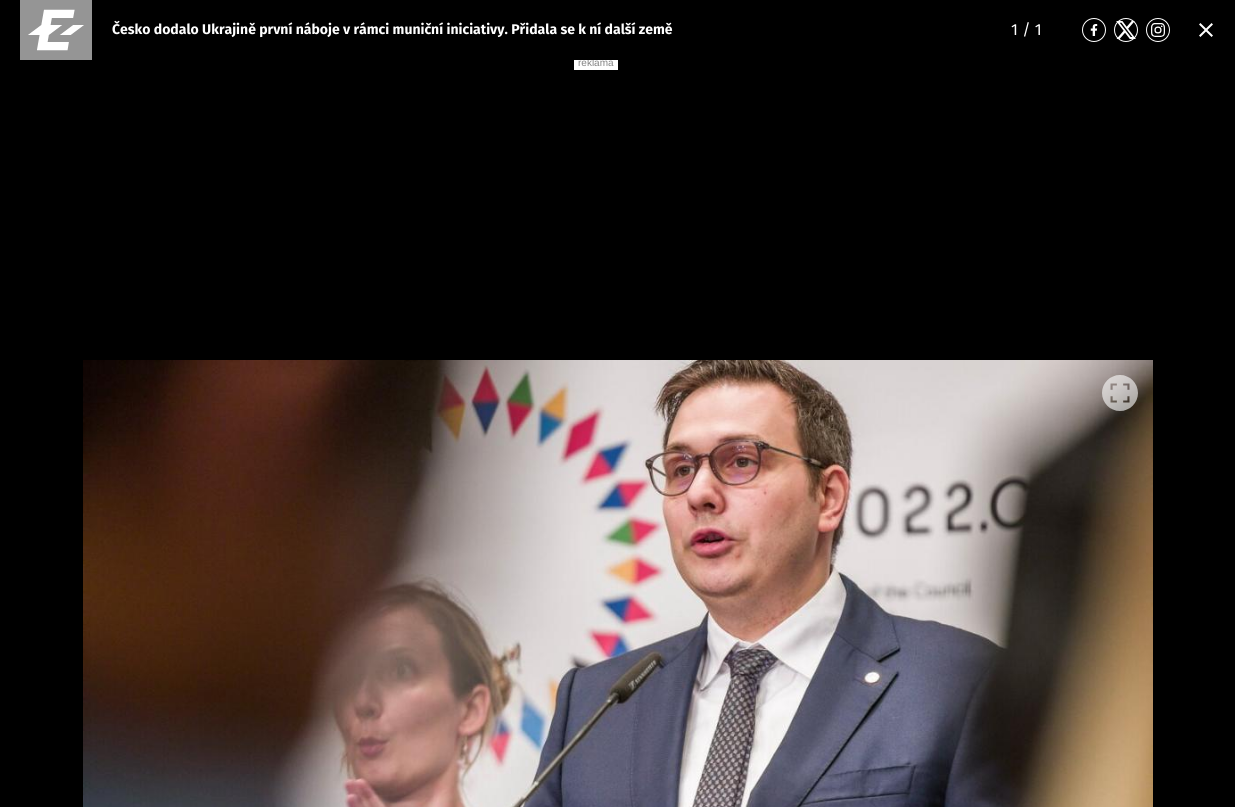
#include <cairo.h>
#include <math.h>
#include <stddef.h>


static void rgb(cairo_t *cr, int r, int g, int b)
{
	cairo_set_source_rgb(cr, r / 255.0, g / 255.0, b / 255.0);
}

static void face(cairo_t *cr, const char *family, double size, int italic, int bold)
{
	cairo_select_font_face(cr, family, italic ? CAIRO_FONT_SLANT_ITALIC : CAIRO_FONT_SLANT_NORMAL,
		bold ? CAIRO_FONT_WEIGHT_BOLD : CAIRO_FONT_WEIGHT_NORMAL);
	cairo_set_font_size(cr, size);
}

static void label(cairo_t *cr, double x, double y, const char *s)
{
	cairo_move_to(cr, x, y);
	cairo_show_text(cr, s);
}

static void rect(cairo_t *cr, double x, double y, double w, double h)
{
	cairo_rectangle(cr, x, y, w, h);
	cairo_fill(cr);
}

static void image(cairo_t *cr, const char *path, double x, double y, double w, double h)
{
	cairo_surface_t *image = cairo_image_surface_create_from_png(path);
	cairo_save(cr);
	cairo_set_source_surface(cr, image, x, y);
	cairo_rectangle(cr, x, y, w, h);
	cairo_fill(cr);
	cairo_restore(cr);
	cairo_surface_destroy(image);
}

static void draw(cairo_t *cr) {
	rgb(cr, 0, 0, 0);
	cairo_paint(cr);
	rgb(cr, 255, 255, 255);
	rect(cr, 574, 60, 44, 10);
	face(cr, "Liberation Sans", 10, 0, 0);
	rgb(cr, 132, 132, 132);
	label(cr, 578, 66, "reklama");
	rgb(cr, 0, 0, 0);
	rect(cr, 587, 58, 7, 2);
	rgb(cr, 149, 149, 149);
	rect(cr, 20, 0, 72, 60);
	image(cr, "image0.png", 28, 9, 56, 42);
	face(cr, "Fira Sans", 14, 0, 1);
	rgb(cr, 255, 255, 255);
	label(cr, 112, 34, "Česko dodalo Ukrajině první náboje v rámci muniční iniciativy. Přidala se k ní další země");
	face(cr, "Fira Sans", 16, 0, 0);
	label(cr, 1011, 35, "1 / 1");
	cairo_new_path(cr);
	cairo_arc(cr, 1094, 30, 11.5, 0, 2 * M_PI);
	cairo_set_line_width(cr, 1);
	cairo_stroke(cr);
	image(cr, "image1.png", 1090, 24, 8, 12);
	cairo_arc(cr, 1126, 30, 11.5, 0, 2 * M_PI);
	cairo_stroke(cr);
	image(cr, "image2.png", 1116, 21, 20, 18);
	cairo_arc(cr, 1158, 30, 11.5, 0, 2 * M_PI);
	cairo_stroke(cr);
	image(cr, "image3.png", 1151, 23, 14, 14);
	image(cr, "image4.png", 1199, 23, 14, 14);
	image(cr, "image5.png", 83, 360, 1070, 447);
	image(cr, "image6.png", 1102, 375, 36, 36);
}

int main(void) {
	cairo_surface_t *surface = cairo_image_surface_create(CAIRO_FORMAT_RGB24, 1235, 807);
	cairo_t *cr = cairo_create(surface);
	cairo_font_options_t *options = cairo_font_options_create();
	cairo_font_options_set_hint_metrics(options, CAIRO_HINT_METRICS_OFF);
	cairo_font_options_set_hint_style(options, CAIRO_HINT_STYLE_NONE);
	cairo_set_font_options(cr, options);
	cairo_set_miter_limit(cr, 4);
	draw(cr);
	cairo_surface_write_to_png(surface, "render.png");
	cairo_font_options_destroy(options);
	cairo_destroy(cr);
	cairo_surface_destroy(surface);
	return 0;
}
